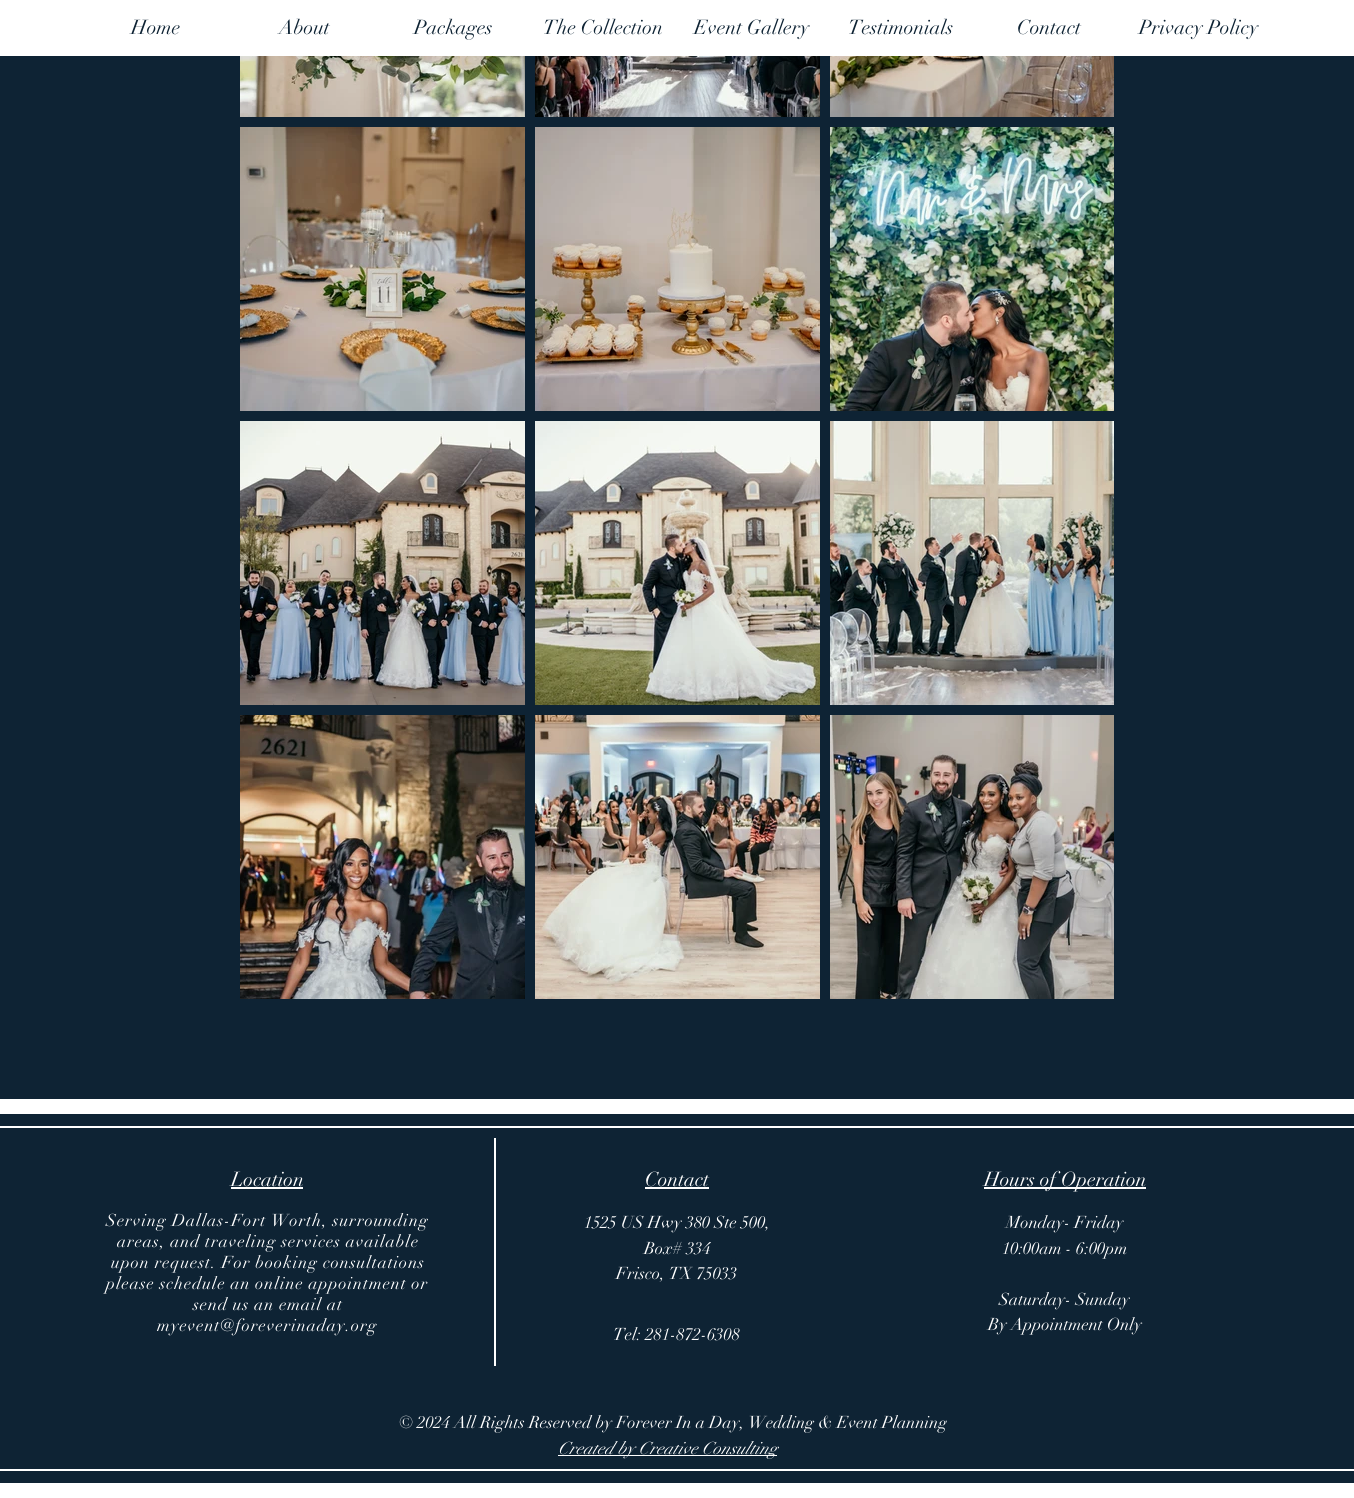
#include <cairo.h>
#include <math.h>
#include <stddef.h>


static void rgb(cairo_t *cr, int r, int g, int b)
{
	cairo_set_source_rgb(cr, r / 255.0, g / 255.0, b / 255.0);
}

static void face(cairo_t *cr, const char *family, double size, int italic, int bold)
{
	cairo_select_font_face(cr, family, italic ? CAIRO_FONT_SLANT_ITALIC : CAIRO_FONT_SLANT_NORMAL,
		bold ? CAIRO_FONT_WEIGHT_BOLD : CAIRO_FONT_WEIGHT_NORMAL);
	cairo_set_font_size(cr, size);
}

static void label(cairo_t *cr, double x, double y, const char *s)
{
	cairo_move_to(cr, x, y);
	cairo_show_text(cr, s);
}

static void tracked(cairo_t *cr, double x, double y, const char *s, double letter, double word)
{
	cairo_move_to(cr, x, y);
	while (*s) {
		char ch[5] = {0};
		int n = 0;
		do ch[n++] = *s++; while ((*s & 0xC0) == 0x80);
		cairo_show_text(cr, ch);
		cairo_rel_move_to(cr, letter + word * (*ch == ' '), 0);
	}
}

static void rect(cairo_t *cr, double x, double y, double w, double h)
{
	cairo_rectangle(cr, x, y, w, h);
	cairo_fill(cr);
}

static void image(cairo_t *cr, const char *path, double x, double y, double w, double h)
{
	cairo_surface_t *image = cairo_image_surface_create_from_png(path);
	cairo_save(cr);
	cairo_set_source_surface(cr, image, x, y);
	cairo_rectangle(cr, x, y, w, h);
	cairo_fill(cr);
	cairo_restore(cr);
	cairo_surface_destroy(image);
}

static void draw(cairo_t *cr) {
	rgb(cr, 255, 255, 255);
	cairo_paint(cr);
	face(cr, "didot", 20, 0, 0);
	rgb(cr, 14, 35, 52);
	label(cr, 131, 34, "Home");
	label(cr, 279, 34, "About");
	label(cr, 414, 34, "Packages");
	label(cr, 543, 34, "The Collection");
	label(cr, 694, 34, "Event Gallery");
	label(cr, 848, 34, "Testimonials");
	label(cr, 1017, 34, "Contact");
	label(cr, 1139, 34, "Privacy Policy");
	rect(cr, 0, 56, 1354, 1043);
	image(cr, "image0.png", 240, 56, 285, 61);
	image(cr, "image1.png", 535, 56, 285, 61);
	image(cr, "image2.png", 830, 56, 284, 61);
	image(cr, "image3.png", 240, 127, 285, 284);
	image(cr, "image4.png", 535, 127, 285, 284);
	image(cr, "image5.png", 830, 127, 284, 284);
	image(cr, "image6.png", 240, 421, 285, 284);
	image(cr, "image7.png", 535, 421, 285, 284);
	image(cr, "image8.png", 830, 421, 284, 284);
	image(cr, "image9.png", 240, 715, 285, 284);
	image(cr, "image10.png", 535, 715, 285, 284);
	image(cr, "image11.png", 830, 715, 284, 284);
	rect(cr, 0, 1114, 1354, 369);
	rgb(cr, 255, 255, 255);
	rect(cr, 0, 1126, 1354, 2);
	rect(cr, 0, 1469, 1354, 2);
	label(cr, 231, 1186, "Location");
	rect(cr, 231, 1187, 72, 2);
	rect(cr, 494, 1138, 2, 228);
	label(cr, 645, 1186, "Contact");
	rect(cr, 645, 1187, 64, 2);
	rect(cr, 984, 1187, 162, 2);
	label(cr, 984, 1186, "Hours of Operation");
	face(cr, "didot", 17, 0, 0);
	tracked(cr, 106, 1226, "Serving Dallas-Fort Worth, surrounding", 0.85, 0);
	tracked(cr, 117, 1247, "areas, and traveling services available", 0.85, 0);
	tracked(cr, 111, 1268, "upon request. For booking consultations", 0.85, 0);
	tracked(cr, 106, 1289, "please schedule an online appointment or", 0.85, 0);
	tracked(cr, 193, 1310, "send us an email at", 0.85, 0);
	tracked(cr, 157, 1331, "myevent@foreverinaday.org", 0.85, 0);
	label(cr, 584, 1228, "1525 US Hwy 380 Ste 500,");
	label(cr, 644, 1254, "Box# 334");
	label(cr, 616, 1279, "Frisco, TX 75033");
	label(cr, 1006, 1228, "Monday- Friday");
	label(cr, 1002, 1254, "10:00am - 6:00pm");
	label(cr, 999, 1305, "Saturday- Sunday");
	label(cr, 988, 1330, "By Appointment Only");
	label(cr, 613, 1340, "Tel: 281-872-6308");
	label(cr, 399, 1428, "© 2024 All Rights Reserved by Forever In a Day, Wedding & Event Planning");
	rect(cr, 558, 1455, 219, 1);
	face(cr, "didot", 17, 1, 0);
	label(cr, 558, 1454, "Created by Creative Consulting");
}

int main(void) {
	cairo_surface_t *surface = cairo_image_surface_create(CAIRO_FORMAT_RGB24, 1354, 1498);
	cairo_t *cr = cairo_create(surface);
	cairo_font_options_t *options = cairo_font_options_create();
	cairo_font_options_set_hint_metrics(options, CAIRO_HINT_METRICS_OFF);
	cairo_font_options_set_hint_style(options, CAIRO_HINT_STYLE_NONE);
	cairo_set_font_options(cr, options);
	cairo_set_miter_limit(cr, 4);
	draw(cr);
	cairo_surface_write_to_png(surface, "render.png");
	cairo_font_options_destroy(options);
	cairo_destroy(cr);
	cairo_surface_destroy(surface);
	return 0;
}
